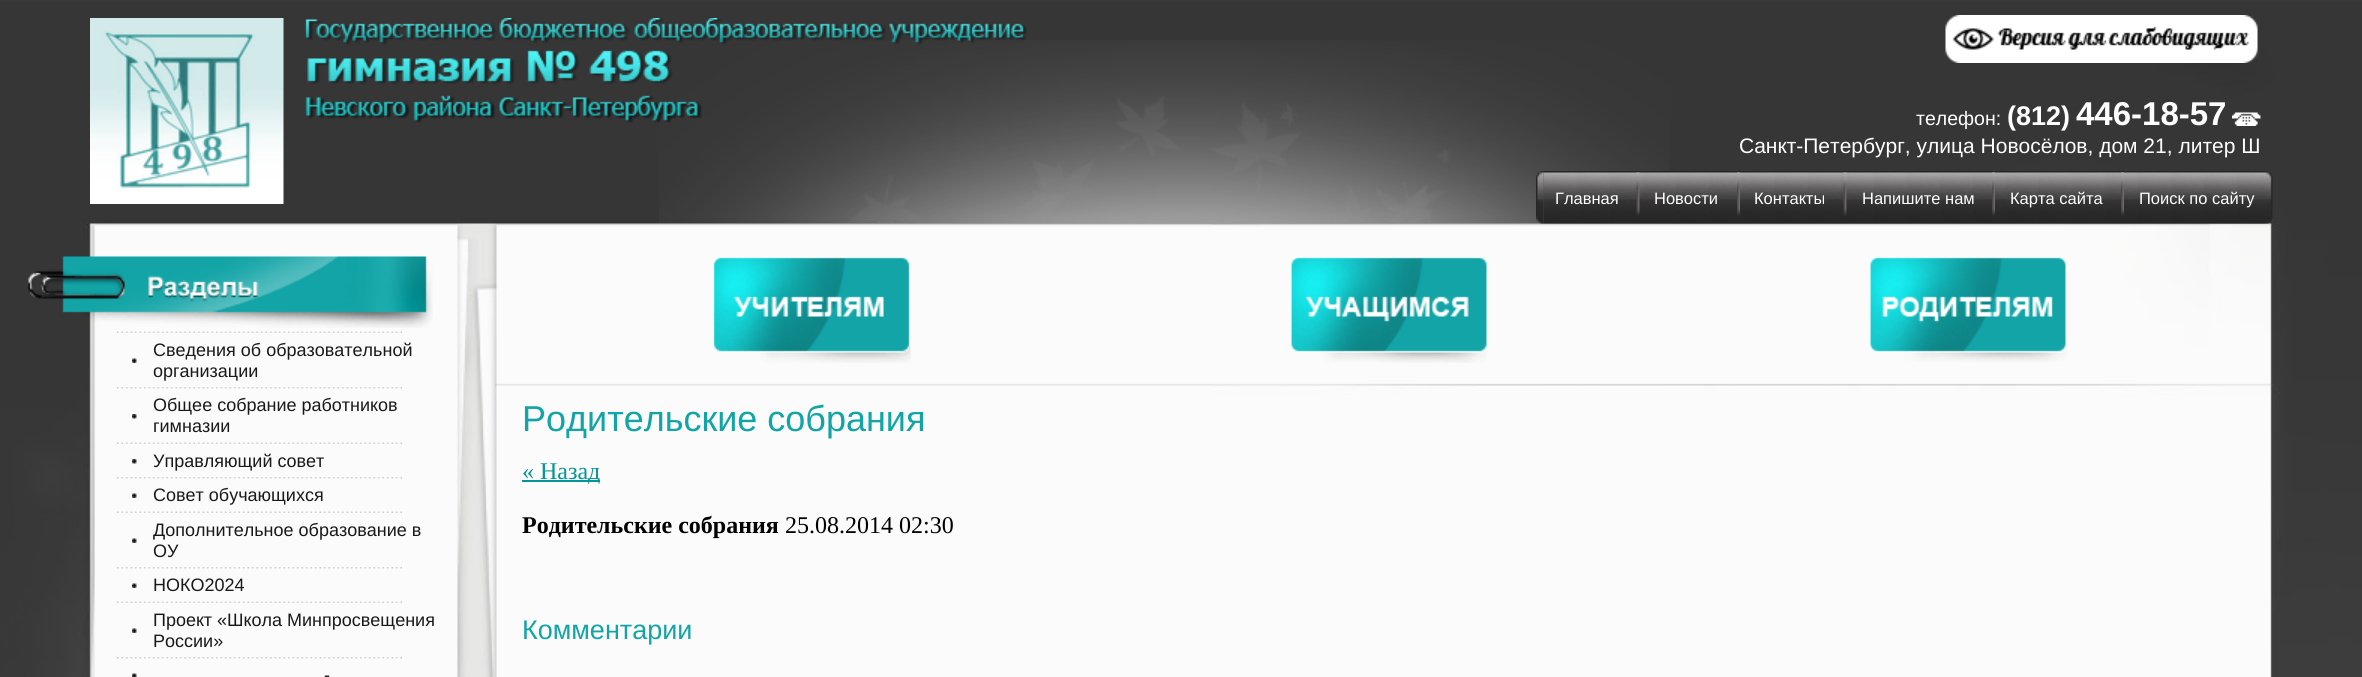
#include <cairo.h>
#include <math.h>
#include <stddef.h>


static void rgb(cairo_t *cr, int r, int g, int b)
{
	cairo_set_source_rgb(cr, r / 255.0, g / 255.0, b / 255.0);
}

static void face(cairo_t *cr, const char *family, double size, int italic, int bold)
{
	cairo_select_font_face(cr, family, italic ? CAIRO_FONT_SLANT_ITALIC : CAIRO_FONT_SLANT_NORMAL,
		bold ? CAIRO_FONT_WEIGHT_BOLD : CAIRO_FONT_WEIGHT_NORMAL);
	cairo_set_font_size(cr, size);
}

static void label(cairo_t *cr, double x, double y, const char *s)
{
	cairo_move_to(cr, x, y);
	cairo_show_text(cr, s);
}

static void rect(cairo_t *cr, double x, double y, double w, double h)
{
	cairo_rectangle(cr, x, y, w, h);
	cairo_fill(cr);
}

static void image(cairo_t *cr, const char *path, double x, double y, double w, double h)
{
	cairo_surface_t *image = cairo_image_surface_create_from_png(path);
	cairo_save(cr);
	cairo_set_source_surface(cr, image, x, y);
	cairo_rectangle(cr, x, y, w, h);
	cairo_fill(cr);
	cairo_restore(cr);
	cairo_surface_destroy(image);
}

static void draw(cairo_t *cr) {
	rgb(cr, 255, 255, 255);
	cairo_paint(cr);
	image(cr, "image0.png", 0, 0, 2362, 677);
	image(cr, "image1.png", 1212, 47, 1150, 630);
	image(cr, "image2.png", 0, 220, 497, 457);
	image(cr, "image3.png", 90, 18, 194, 186);
	image(cr, "image6.png", 659, 40, 1010, 184);
	image(cr, "image4.png", 305, 18, 722, 105);
	image(cr, "image5.png", 1945, 15, 313, 48);
	face(cr, "Liberation Sans", 19.5, 0, 0);
	rgb(cr, 254, 254, 254);
	label(cr, 1916, 125, "телефон:");
	face(cr, "Liberation Sans", 27, 0, 1);
	label(cr, 2007, 125, "(812)");
	face(cr, "Liberation Sans", 33, 0, 1);
	label(cr, 2076, 125, "446-18-57");
	image(cr, "image7.png", 2232, 112, 29, 14);
	face(cr, "Liberation Sans", 21, 0, 0);
	label(cr, 1739, 153, "Санкт-Петербург, улица Новосёлов, дом 21, литер Ш");
	image(cr, "image8.png", 1543, 171, 722, 53);
	image(cr, "image9.png", 1536, 171, 8, 53);
	image(cr, "image10.png", 2265, 171, 8, 53);
	face(cr, "Liberation Sans", 16.5, 0, 0);
	label(cr, 1555, 204, "Главная");
	image(cr, "image11.png", 1636, 172, 4, 44);
	label(cr, 1654, 204, "Новости");
	image(cr, "image12.png", 1737, 172, 3, 44);
	label(cr, 1754, 204, "Контакты");
	image(cr, "image13.png", 1843, 172, 4, 44);
	label(cr, 1862, 204, "Напишите нам");
	image(cr, "image14.png", 1992, 172, 3, 44);
	label(cr, 2010, 204, "Карта сайта");
	image(cr, "image15.png", 2121, 172, 3, 44);
	label(cr, 2139, 204, "Поиск по сайту");
	image(cr, "image16.png", 28, 256, 405, 72);
	image(cr, "image17.png", 117, 331, 285, 2);
	image(cr, "image18.png", 132, 358, 5, 5);
	face(cr, "Liberation Sans", 18, 0, 0);
	rgb(cr, 25, 25, 25);
	label(cr, 153, 356, "Сведения об образовательной");
	label(cr, 153, 377, "организации");
	image(cr, "image19.png", 117, 387, 285, 2);
	image(cr, "image20.png", 132, 414, 5, 5);
	label(cr, 153, 411, "Общее собрание работников");
	label(cr, 153, 432, "гимназии");
	image(cr, "image17.png", 117, 442, 285, 2);
	image(cr, "image20.png", 132, 459, 5, 5);
	label(cr, 153, 467, "Управляющий совет");
	image(cr, "image19.png", 117, 477, 285, 2);
	image(cr, "image18.png", 132, 493, 5, 5);
	label(cr, 153, 501, "Совет обучающихся");
	image(cr, "image17.png", 117, 511, 285, 2);
	image(cr, "image18.png", 132, 538, 5, 5);
	label(cr, 153, 536, "Дополнительное образование в");
	label(cr, 153, 557, "ОУ");
	image(cr, "image19.png", 117, 567, 285, 2);
	image(cr, "image18.png", 132, 583, 5, 5);
	label(cr, 153, 591, "НОКО2024");
	image(cr, "image17.png", 117, 601, 285, 2);
	image(cr, "image18.png", 132, 628, 5, 5);
	label(cr, 153, 626, "Проект «Школа Минпросвещения");
	label(cr, 153, 647, "России»");
	image(cr, "image19.png", 117, 657, 285, 2);
	image(cr, "image21.png", 132, 673, 5, 4);
	label(cr, 324, 681, "-");
	image(cr, "image22.png", 713, 257, 198, 106);
	image(cr, "image23.png", 1291, 257, 196, 106);
	image(cr, "image24.png", 1870, 257, 197, 105);
	face(cr, "Liberation Sans", 36, 0, 0);
	rgb(cr, 18, 164, 166);
	label(cr, 522, 431, "Родительские собрания");
	rgb(cr, 5, 149, 151);
	rect(cr, 522, 480, 78, 2);
	face(cr, "Liberation Serif", 24, 0, 0);
	label(cr, 522, 479, "« Назад");
	face(cr, "Liberation Serif", 24, 0, 1);
	rgb(cr, 0, 0, 0);
	label(cr, 522, 533, "Родительские собрания");
	face(cr, "Liberation Serif", 24, 0, 0);
	label(cr, 785, 533, "25.08.2014 02:30");
	face(cr, "Liberation Sans", 27, 0, 0);
	rgb(cr, 18, 164, 166);
	label(cr, 522, 639, "Комментарии");
}

int main(void) {
	cairo_surface_t *surface = cairo_image_surface_create(CAIRO_FORMAT_RGB24, 2362, 677);
	cairo_t *cr = cairo_create(surface);
	cairo_font_options_t *options = cairo_font_options_create();
	cairo_font_options_set_hint_metrics(options, CAIRO_HINT_METRICS_OFF);
	cairo_font_options_set_hint_style(options, CAIRO_HINT_STYLE_NONE);
	cairo_set_font_options(cr, options);
	cairo_set_miter_limit(cr, 4);
	draw(cr);
	cairo_surface_write_to_png(surface, "render.png");
	cairo_font_options_destroy(options);
	cairo_destroy(cr);
	cairo_surface_destroy(surface);
	return 0;
}
